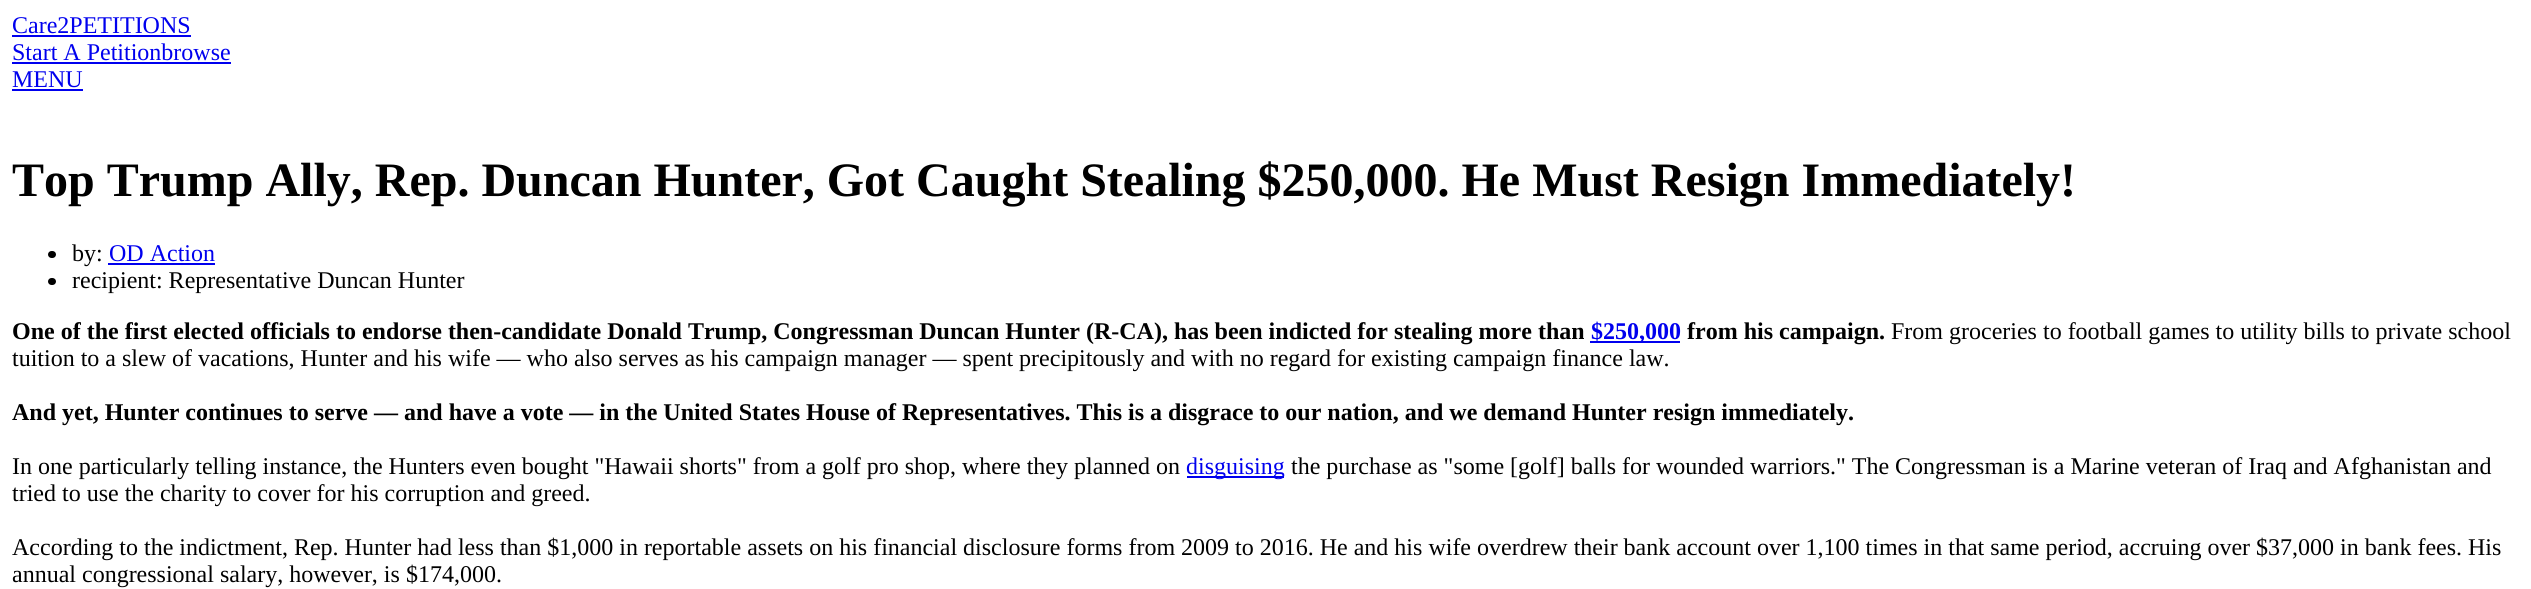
#include <cairo.h>
#include <math.h>
#include <stddef.h>


static void rgb(cairo_t *cr, int r, int g, int b)
{
	cairo_set_source_rgb(cr, r / 255.0, g / 255.0, b / 255.0);
}

static void face(cairo_t *cr, const char *family, double size, int italic, int bold)
{
	cairo_select_font_face(cr, family, italic ? CAIRO_FONT_SLANT_ITALIC : CAIRO_FONT_SLANT_NORMAL,
		bold ? CAIRO_FONT_WEIGHT_BOLD : CAIRO_FONT_WEIGHT_NORMAL);
	cairo_set_font_size(cr, size);
}

static void label(cairo_t *cr, double x, double y, const char *s)
{
	cairo_move_to(cr, x, y);
	cairo_show_text(cr, s);
}

static void rect(cairo_t *cr, double x, double y, double w, double h)
{
	cairo_rectangle(cr, x, y, w, h);
	cairo_fill(cr);
}

static void rrect(cairo_t *cr, double x, double y, double w, double h, double r)
{
	cairo_new_sub_path(cr);
	cairo_arc(cr, x + w - r, y + h - r, r, 0, M_PI / 2);
	cairo_arc(cr, x + r, y + h - r, r, M_PI / 2, M_PI);
	cairo_arc(cr, x + r, y + r, r, M_PI, 1.5 * M_PI);
	cairo_arc(cr, x + w - r, y + r, r, 1.5 * M_PI, 2 * M_PI);
	cairo_close_path(cr);
}

static void draw(cairo_t *cr) {
	rgb(cr, 255, 255, 255);
	cairo_paint(cr);
	face(cr, "Liberation Serif", 24, 0, 0);
	rgb(cr, 0, 0, 238);
	label(cr, 12, 33, "Care2PETITIONS");
	rect(cr, 12, 35, 179, 2);
	label(cr, 12, 60, "Start A Petitionbrowse");
	rect(cr, 12, 62, 219, 2);
	label(cr, 12, 87, "MENU");
	rect(cr, 12, 89, 71, 2);
	face(cr, "Liberation Serif", 48, 0, 1);
	rgb(cr, 0, 0, 0);
	label(cr, 12, 196, "Top Trump Ally, Rep. Duncan Hunter, Got Caught Stealing $250,000. He Must Resign Immediately!");
	rrect(cr, 48, 251, 8, 7, 3.5);
	cairo_fill(cr);
	face(cr, "Liberation Serif", 24, 0, 0);
	label(cr, 72, 261, "by:");
	rgb(cr, 0, 0, 238);
	label(cr, 109, 261, "OD Action");
	rect(cr, 108, 263, 107, 2);
	rgb(cr, 0, 0, 0);
	rrect(cr, 48, 278, 8, 7, 3.5);
	cairo_fill(cr);
	label(cr, 72, 288, "recipient: Representative Duncan Hunter");
	face(cr, "Liberation Serif", 24, 0, 1);
	label(cr, 12, 339, "One of the first elected officials to endorse then-candidate Donald Trump, Congressman Duncan Hunter (R-CA), has been indicted for stealing more than");
	rgb(cr, 0, 0, 238);
	rect(cr, 1590, 341, 90, 2);
	label(cr, 1591, 339, "$250,000");
	rgb(cr, 0, 0, 0);
	label(cr, 1687, 339, "from his campaign.");
	face(cr, "Liberation Serif", 24, 0, 0);
	label(cr, 1891, 339, "From groceries to football games to utility bills to private school");
	label(cr, 12, 366, "tuition to a slew of vacations, Hunter and his wife — who also serves as his campaign manager — spent precipitously and with no regard for existing campaign finance law.");
	face(cr, "Liberation Serif", 24, 0, 1);
	label(cr, 12, 420, "And yet, Hunter continues to serve — and have a vote — in the United States House of Representatives. This is a disgrace to our nation, and we demand Hunter resign immediately.");
	face(cr, "Liberation Serif", 24, 0, 0);
	label(cr, 12, 474, "In one particularly telling instance, the Hunters even bought \"Hawaii shorts\" from a golf pro shop, where they planned on");
	rgb(cr, 0, 0, 238);
	rect(cr, 1187, 476, 97, 2);
	label(cr, 1186, 474, "disguising");
	rgb(cr, 0, 0, 0);
	label(cr, 1291, 474, "the purchase as \"some [golf] balls for wounded warriors.\" The Congressman is a Marine veteran of Iraq and Afghanistan and");
	label(cr, 12, 501, "tried to use the charity to cover for his corruption and greed.");
	label(cr, 12, 555, "According to the indictment, Rep. Hunter had less than $1,000 in reportable assets on his financial disclosure forms from 2009 to 2016. He and his wife overdrew their bank account over 1,100 times in that same period, accruing over $37,000 in bank fees. His");
	label(cr, 12, 582, "annual congressional salary, however, is $174,000.");
}

int main(void) {
	cairo_surface_t *surface = cairo_image_surface_create(CAIRO_FORMAT_RGB24, 2531, 589);
	cairo_t *cr = cairo_create(surface);
	cairo_font_options_t *options = cairo_font_options_create();
	cairo_font_options_set_hint_metrics(options, CAIRO_HINT_METRICS_OFF);
	cairo_font_options_set_hint_style(options, CAIRO_HINT_STYLE_NONE);
	cairo_set_font_options(cr, options);
	cairo_set_miter_limit(cr, 4);
	draw(cr);
	cairo_surface_write_to_png(surface, "render.png");
	cairo_font_options_destroy(options);
	cairo_destroy(cr);
	cairo_surface_destroy(surface);
	return 0;
}
